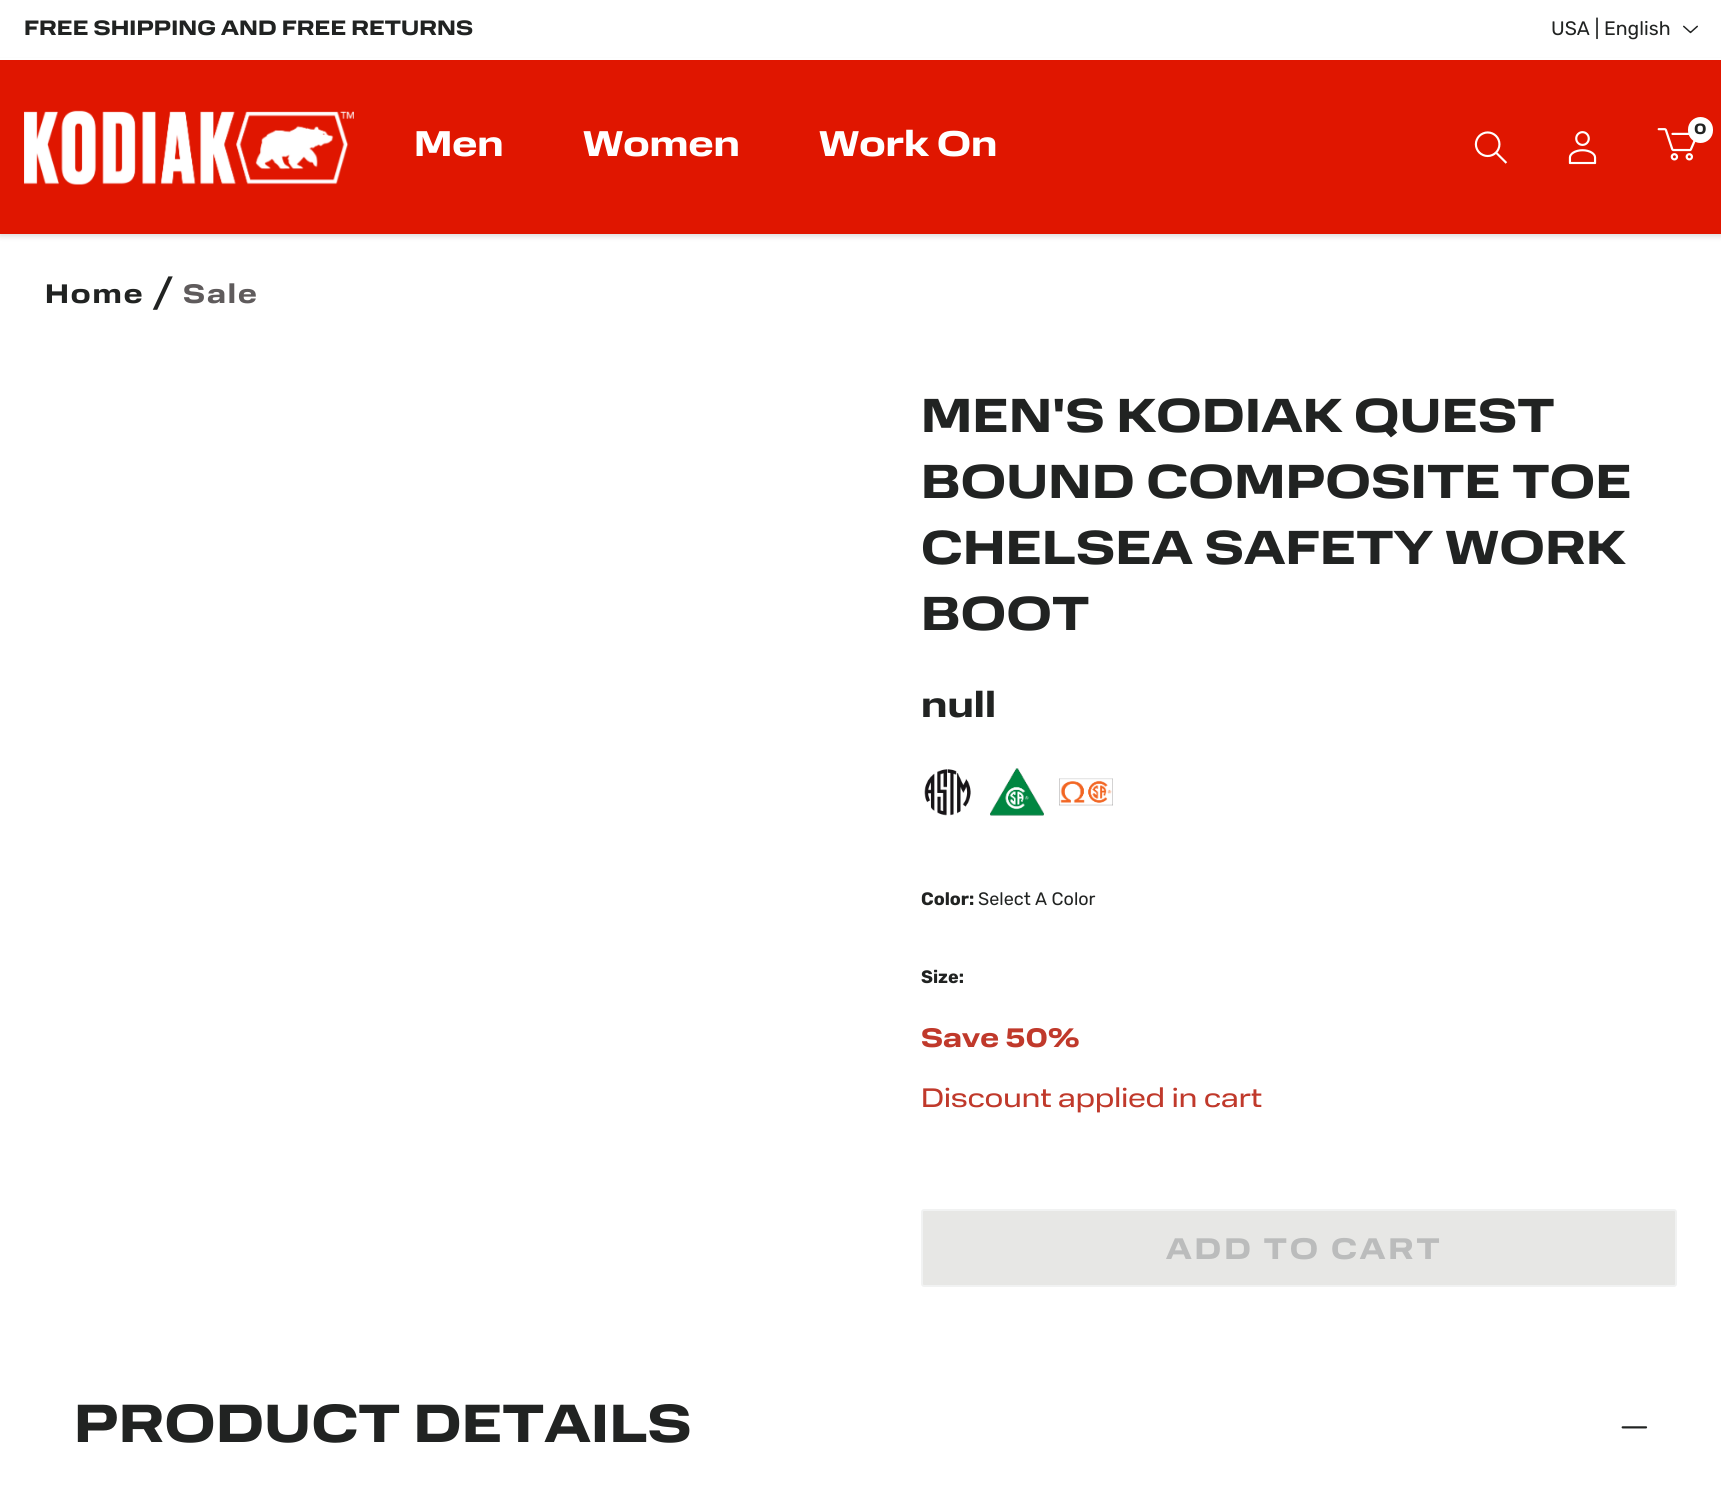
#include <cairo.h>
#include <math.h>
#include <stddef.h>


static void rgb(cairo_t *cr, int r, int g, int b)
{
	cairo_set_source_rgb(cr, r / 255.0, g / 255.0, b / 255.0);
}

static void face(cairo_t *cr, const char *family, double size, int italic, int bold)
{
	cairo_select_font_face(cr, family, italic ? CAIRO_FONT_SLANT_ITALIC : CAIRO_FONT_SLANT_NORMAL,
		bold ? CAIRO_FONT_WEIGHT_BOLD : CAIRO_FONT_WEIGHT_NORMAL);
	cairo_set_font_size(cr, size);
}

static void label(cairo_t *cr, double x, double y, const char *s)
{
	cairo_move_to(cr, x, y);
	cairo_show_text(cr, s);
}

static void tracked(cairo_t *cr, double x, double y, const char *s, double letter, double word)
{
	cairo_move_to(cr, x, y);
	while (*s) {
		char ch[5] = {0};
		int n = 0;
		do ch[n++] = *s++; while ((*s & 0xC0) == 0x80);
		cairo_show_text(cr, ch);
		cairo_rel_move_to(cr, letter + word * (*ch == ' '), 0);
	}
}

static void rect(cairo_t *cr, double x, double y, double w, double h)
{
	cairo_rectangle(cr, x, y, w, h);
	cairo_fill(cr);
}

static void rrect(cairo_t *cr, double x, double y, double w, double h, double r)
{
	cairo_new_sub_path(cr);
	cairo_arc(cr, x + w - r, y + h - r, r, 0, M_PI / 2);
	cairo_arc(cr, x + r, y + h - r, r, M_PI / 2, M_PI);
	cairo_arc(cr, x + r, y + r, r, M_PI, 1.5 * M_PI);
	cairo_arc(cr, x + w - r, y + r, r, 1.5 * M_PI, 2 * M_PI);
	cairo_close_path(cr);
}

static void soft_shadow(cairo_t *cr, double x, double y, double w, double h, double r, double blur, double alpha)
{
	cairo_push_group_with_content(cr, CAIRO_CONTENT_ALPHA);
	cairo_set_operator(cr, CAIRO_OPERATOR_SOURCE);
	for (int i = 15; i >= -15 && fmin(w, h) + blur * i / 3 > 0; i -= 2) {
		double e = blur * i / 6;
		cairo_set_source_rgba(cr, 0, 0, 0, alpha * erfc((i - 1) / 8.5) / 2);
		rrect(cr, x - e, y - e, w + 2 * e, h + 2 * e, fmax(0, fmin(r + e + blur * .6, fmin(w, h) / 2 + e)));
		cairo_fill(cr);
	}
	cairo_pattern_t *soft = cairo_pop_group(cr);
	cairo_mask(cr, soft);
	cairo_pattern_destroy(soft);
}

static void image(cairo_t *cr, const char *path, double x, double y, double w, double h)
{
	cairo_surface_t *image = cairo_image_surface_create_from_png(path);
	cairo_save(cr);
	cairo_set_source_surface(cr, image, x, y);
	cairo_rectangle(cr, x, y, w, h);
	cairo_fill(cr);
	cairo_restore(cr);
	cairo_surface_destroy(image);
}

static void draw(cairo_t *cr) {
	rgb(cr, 255, 255, 255);
	cairo_paint(cr);
	rgb(cr, 0, 0, 0);
	soft_shadow(cr, 0, 62, 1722, 174, 0, 3, 0.15);
	rgb(cr, 255, 255, 255);
	rect(cr, 0, 58, 1721, 2);
	face(cr, "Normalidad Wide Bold", 21, 0, 1);
	rgb(cr, 33, 35, 34);
	tracked(cr, 24, 35, "FREE SHIPPING AND FREE RETURNS", 0.15, 0);
	face(cr, "Rubik", 19.5, 0, 0);
	label(cr, 1551, 35, "USA | English");
	image(cr, "image0.png", 1683, 25, 15, 9);
	rgb(cr, 224, 22, 0);
	rect(cr, 0, 60, 1721, 174);
	image(cr, "image1.png", 24, 110, 330, 75);
	face(cr, "Normalidad Wide Bold", 36, 0, 1);
	rgb(cr, 255, 255, 255);
	label(cr, 414, 156, "Men");
	label(cr, 583, 156, "Women");
	label(cr, 819, 156, "Work On");
	image(cr, "image2.png", 1657, 128, 39, 33);
	rrect(cr, 1688, 117, 25, 26, 12.5);
	cairo_fill(cr);
	face(cr, "Normalidad Wide Bold", 15, 0, 1);
	rgb(cr, 33, 35, 34);
	tracked(cr, 1694, 134, "0", 0.15, 0);
	image(cr, "image3.png", 1474, 131, 34, 33);
	image(cr, "image4.png", 1568, 131, 29, 34);
	face(cr, "Normalidad Wide Bold", 27, 0, 1);
	tracked(cr, 45, 303, "Home", 2, 0);
	face(cr, "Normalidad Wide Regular", 40, 0, 0);
	tracked(cr, 152, 306, "/", 2, 0);
	face(cr, "Normalidad Wide Bold", 27, 0, 1);
	rgb(cr, 95, 91, 92);
	tracked(cr, 183, 303, "Sale", 2, 0);
	face(cr, "Normalidad Wide Bold", 48, 0, 1);
	rgb(cr, 33, 35, 34);
	tracked(cr, 921, 432, "MEN'S KODIAK QUEST", 0.5, 0);
	tracked(cr, 921, 498, "BOUND COMPOSITE TOE", 0.5, 0);
	tracked(cr, 921, 564, "CHELSEA SAFETY WORK", 0.5, 0);
	tracked(cr, 921, 630, "BOOT", 0.5, 0);
	face(cr, "Normalidad Wide Bold", 36, 0, 1);
	tracked(cr, 921, 717, "null", 0.15, 0);
	image(cr, "image5.png", 924, 769, 47, 47);
	image(cr, "image6.png", 990, 768, 54, 48);
	image(cr, "image7.png", 1059, 778, 54, 28);
	face(cr, "Rubik", 18, 0, 1);
	label(cr, 921, 905, "Color:");
	face(cr, "Rubik", 18, 0, 0);
	label(cr, 978, 905, "Select A Color");
	face(cr, "Rubik", 18, 0, 1);
	label(cr, 921, 983, "Size:");
	face(cr, "Normalidad Wide Bold", 27, 0, 1);
	rgb(cr, 192, 57, 43);
	tracked(cr, 921, 1047, "Save 50%", 0.15, 0);
	face(cr, "Normalidad Wide Regular", 27, 0, 0);
	tracked(cr, 921, 1107, "Discount applied in cart", 0.15, 0);
	rgb(cr, 231, 231, 229);
	rrect(cr, 922, 1210, 754, 76, 2);
	cairo_fill_preserve(cr);
	rgb(cr, 241, 242, 242);
	cairo_stroke(cr);
	face(cr, "Normalidad Wide Bold", 30, 0, 1);
	rgb(cr, 187, 188, 188);
	tracked(cr, 1166, 1259, "ADD TO CART", 3, 0);
	face(cr, "Normalidad Wide Bold", 54, 0, 1);
	rgb(cr, 33, 35, 34);
	tracked(cr, 74, 1442, "PRODUCT DETAILS", 0.5, 0);
	image(cr, "image8.png", 1621, 1426, 27, 3);
}

int main(void) {
	cairo_surface_t *surface = cairo_image_surface_create(CAIRO_FORMAT_RGB24, 1721, 1500);
	cairo_t *cr = cairo_create(surface);
	cairo_font_options_t *options = cairo_font_options_create();
	cairo_font_options_set_hint_metrics(options, CAIRO_HINT_METRICS_OFF);
	cairo_font_options_set_hint_style(options, CAIRO_HINT_STYLE_NONE);
	cairo_set_font_options(cr, options);
	cairo_set_miter_limit(cr, 4);
	draw(cr);
	cairo_surface_write_to_png(surface, "render.png");
	cairo_font_options_destroy(options);
	cairo_destroy(cr);
	cairo_surface_destroy(surface);
	return 0;
}
